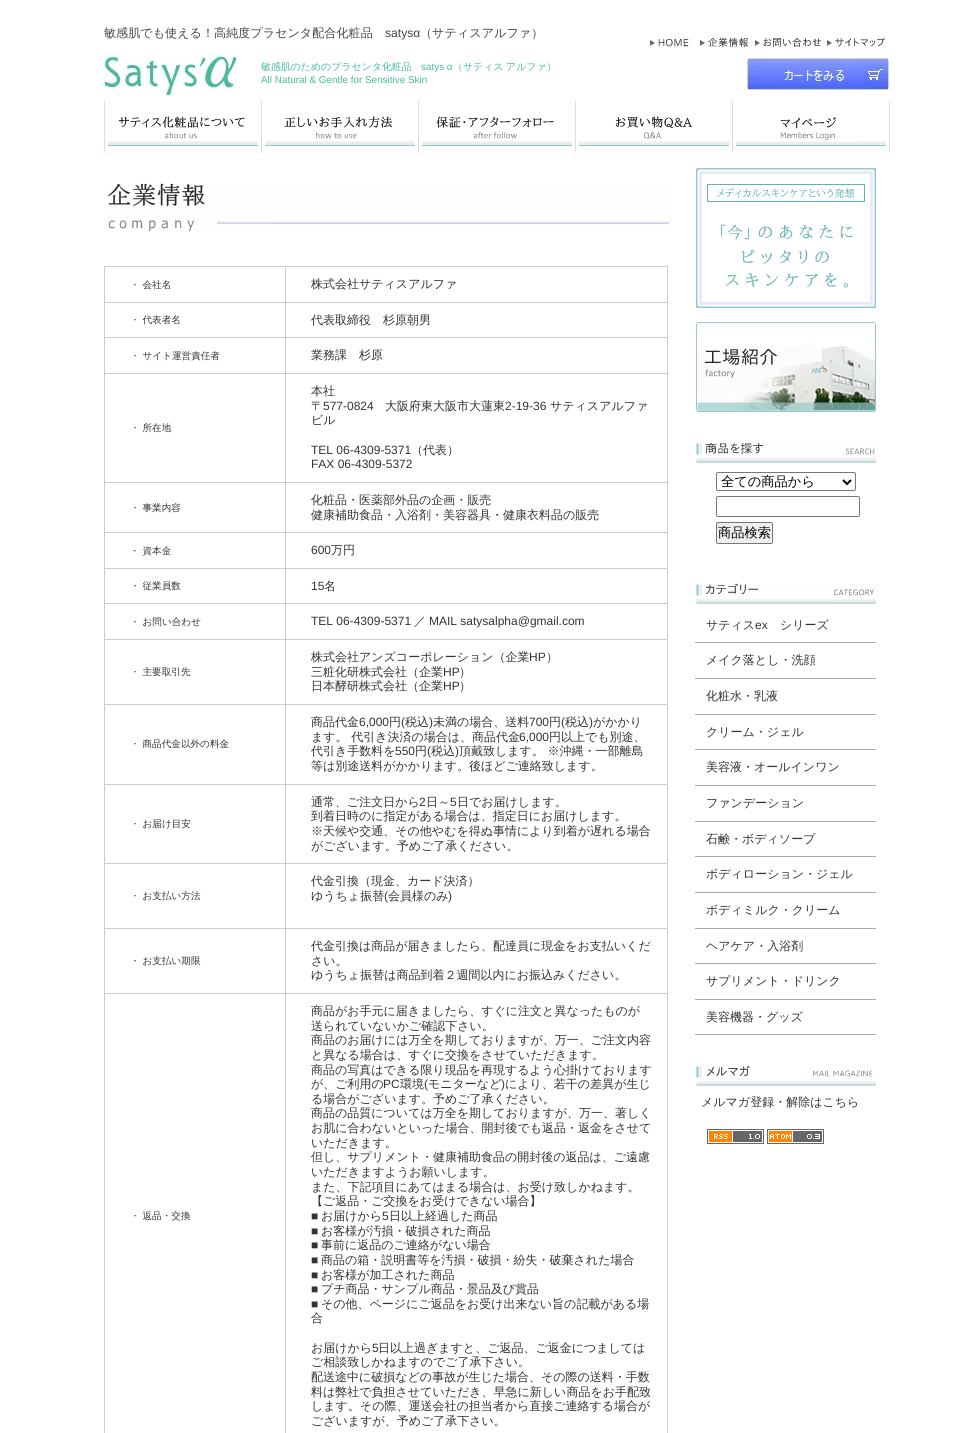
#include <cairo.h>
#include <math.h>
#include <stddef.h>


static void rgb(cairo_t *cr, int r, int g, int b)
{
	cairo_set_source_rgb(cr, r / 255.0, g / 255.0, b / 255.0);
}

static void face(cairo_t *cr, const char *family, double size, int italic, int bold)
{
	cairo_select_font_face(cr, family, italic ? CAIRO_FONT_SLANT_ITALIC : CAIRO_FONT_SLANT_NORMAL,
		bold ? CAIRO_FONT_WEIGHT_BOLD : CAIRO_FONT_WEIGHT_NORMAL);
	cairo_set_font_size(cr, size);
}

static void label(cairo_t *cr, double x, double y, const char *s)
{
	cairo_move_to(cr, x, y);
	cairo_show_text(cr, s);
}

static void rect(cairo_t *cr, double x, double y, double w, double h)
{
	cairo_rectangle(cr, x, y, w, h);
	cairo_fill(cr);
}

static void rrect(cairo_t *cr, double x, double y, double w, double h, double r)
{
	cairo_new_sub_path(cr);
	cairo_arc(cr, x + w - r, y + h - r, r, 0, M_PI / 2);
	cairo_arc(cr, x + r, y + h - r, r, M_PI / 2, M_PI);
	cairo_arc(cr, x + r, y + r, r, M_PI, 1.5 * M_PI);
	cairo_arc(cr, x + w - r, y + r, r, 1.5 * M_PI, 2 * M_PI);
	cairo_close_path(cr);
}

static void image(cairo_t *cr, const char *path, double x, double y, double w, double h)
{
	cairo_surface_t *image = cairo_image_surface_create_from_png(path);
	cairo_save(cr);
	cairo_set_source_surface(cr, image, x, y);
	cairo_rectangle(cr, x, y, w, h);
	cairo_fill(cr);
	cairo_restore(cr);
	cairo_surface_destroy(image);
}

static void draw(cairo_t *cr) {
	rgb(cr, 255, 255, 255);
	cairo_paint(cr);
	face(cr, "WenQuanYi Zen Hei Medium", 12.1, 0, 0);
	rgb(cr, 68, 68, 68);
	label(cr, 104, 37, "敏感肌でも使える！高純度プラセンタ配合化粧品");
	face(cr, "Liberation Sans", 12.1, 0, 0);
	label(cr, 385, 37, "satysα");
	face(cr, "WenQuanYi Zen Hei Medium", 12.1, 0, 0);
	label(cr, 420, 37, "（サティスアルファ）");
	image(cr, "image0.png", 650, 38, 39, 9);
	image(cr, "image1.png", 700, 37, 48, 10);
	image(cr, "image2.png", 755, 38, 67, 9);
	image(cr, "image3.png", 827, 38, 59, 9);
	image(cr, "image4.png", 104, 52, 136, 45);
	face(cr, "WenQuanYi Zen Hei Medium", 9.9, 0, 0);
	rgb(cr, 72, 186, 160);
	label(cr, 261, 70, "敏感肌のためのプラセンタ化粧品");
	face(cr, "Liberation Sans", 9.9, 0, 0);
	label(cr, 421, 70, "satys α");
	face(cr, "WenQuanYi Zen Hei Medium", 9.9, 0, 0);
	label(cr, 453, 70, "（サティス");
	label(cr, 506, 70, "アルファ）");
	face(cr, "Liberation Sans", 9.9, 0, 0);
	label(cr, 261, 83, "All Natural & Gentle for Sensitive Skin");
	image(cr, "image5.png", 747, 58, 142, 32);
	rgb(cr, 221, 221, 221);
	rect(cr, 104, 101, 1, 52);
	image(cr, "image6.png", 108, 116, 150, 30);
	rect(cr, 261, 101, 1, 52);
	image(cr, "image7.png", 265, 116, 150, 30);
	rect(cr, 418, 101, 1, 52);
	image(cr, "image8.png", 422, 116, 150, 30);
	rect(cr, 575, 101, 1, 52);
	image(cr, "image9.png", 579, 116, 150, 30);
	rect(cr, 889, 101, 1, 52);
	rect(cr, 732, 101, 1, 52);
	image(cr, "image10.png", 736, 117, 150, 29);
	image(cr, "image11.png", 108, 183, 561, 48);
	rgb(cr, 204, 204, 204);
	rect(cr, 104, 266, 564, 1);
	rect(cr, 104, 266, 1, 1167);
	rect(cr, 285, 993, 1, 440);
	rect(cr, 667, 266, 1, 1167);
	rect(cr, 285, 993, 383, 1);
	rect(cr, 285, 928, 1, 66);
	rect(cr, 285, 928, 383, 1);
	rect(cr, 285, 863, 1, 66);
	rect(cr, 285, 863, 383, 1);
	rect(cr, 285, 784, 1, 80);
	rect(cr, 285, 784, 383, 1);
	rect(cr, 285, 704, 1, 81);
	rect(cr, 285, 704, 383, 1);
	rect(cr, 285, 639, 1, 66);
	rect(cr, 285, 639, 383, 1);
	rect(cr, 285, 603, 1, 37);
	rect(cr, 285, 603, 383, 1);
	rect(cr, 285, 568, 1, 36);
	rect(cr, 285, 568, 383, 1);
	rect(cr, 285, 532, 1, 37);
	rect(cr, 285, 532, 383, 1);
	rect(cr, 285, 482, 1, 51);
	rect(cr, 285, 482, 383, 1);
	rect(cr, 285, 373, 1, 110);
	rect(cr, 285, 373, 383, 1);
	rect(cr, 285, 337, 1, 37);
	rect(cr, 285, 337, 383, 1);
	rect(cr, 285, 302, 1, 36);
	rect(cr, 285, 302, 383, 1);
	rect(cr, 285, 266, 1, 37);
	rect(cr, 104, 302, 182, 1);
	face(cr, "WenQuanYi Zen Hei Medium", 9.6, 0, 0);
	rgb(cr, 51, 51, 51);
	label(cr, 130, 288, "・ 会社名");
	face(cr, "WenQuanYi Zen Hei Medium", 12, 0, 0);
	label(cr, 311, 288, "株式会社サティスアルファ");
	rgb(cr, 204, 204, 204);
	rect(cr, 104, 337, 182, 1);
	face(cr, "WenQuanYi Zen Hei Medium", 9.6, 0, 0);
	rgb(cr, 51, 51, 51);
	label(cr, 130, 323, "・ 代表者名");
	face(cr, "WenQuanYi Zen Hei Medium", 12, 0, 0);
	label(cr, 311, 324, "代表取締役　杉原朝男");
	rgb(cr, 204, 204, 204);
	rect(cr, 104, 373, 182, 1);
	face(cr, "WenQuanYi Zen Hei Medium", 9.6, 0, 0);
	rgb(cr, 51, 51, 51);
	label(cr, 130, 359, "・ サイト運営責任者");
	face(cr, "WenQuanYi Zen Hei Medium", 12, 0, 0);
	label(cr, 311, 359, "業務課　杉原");
	rgb(cr, 204, 204, 204);
	rect(cr, 104, 482, 182, 1);
	face(cr, "WenQuanYi Zen Hei Medium", 9.6, 0, 0);
	rgb(cr, 51, 51, 51);
	label(cr, 130, 431, "・ 所在地");
	face(cr, "WenQuanYi Zen Hei Medium", 12, 0, 0);
	label(cr, 311, 395, "本社");
	label(cr, 311, 410, "〒");
	face(cr, "Liberation Sans", 12, 0, 0);
	label(cr, 323, 410, "577-0824");
	face(cr, "WenQuanYi Zen Hei Medium", 12, 0, 0);
	label(cr, 385, 410, "大阪府東大阪市大蓮東");
	face(cr, "Liberation Sans", 12, 0, 0);
	label(cr, 505, 410, "2-19-36");
	face(cr, "WenQuanYi Zen Hei Medium", 12, 0, 0);
	label(cr, 550, 410, "サティスアルファ");
	label(cr, 311, 424, "ビル");
	face(cr, "Liberation Sans", 12, 0, 0);
	label(cr, 311, 454, "TEL 06-4309-5371");
	face(cr, "WenQuanYi Zen Hei Medium", 12, 0, 0);
	label(cr, 411, 454, "（代表）");
	face(cr, "Liberation Sans", 12, 0, 0);
	label(cr, 311, 468, "FAX 06-4309-5372");
	rgb(cr, 204, 204, 204);
	rect(cr, 104, 532, 182, 1);
	face(cr, "WenQuanYi Zen Hei Medium", 9.6, 0, 0);
	rgb(cr, 51, 51, 51);
	label(cr, 130, 511, "・ 事業内容");
	face(cr, "WenQuanYi Zen Hei Medium", 12, 0, 0);
	label(cr, 311, 504, "化粧品・医薬部外品の企画・販売");
	label(cr, 311, 519, "健康補助食品・入浴剤・美容器具・健康衣料品の販売");
	rgb(cr, 204, 204, 204);
	rect(cr, 104, 568, 182, 1);
	face(cr, "WenQuanYi Zen Hei Medium", 9.6, 0, 0);
	rgb(cr, 51, 51, 51);
	label(cr, 130, 554, "・ 資本金");
	face(cr, "Liberation Sans", 12, 0, 0);
	label(cr, 311, 554, "600");
	face(cr, "WenQuanYi Zen Hei Medium", 12, 0, 0);
	label(cr, 331, 554, "万円");
	rgb(cr, 204, 204, 204);
	rect(cr, 104, 603, 182, 1);
	face(cr, "WenQuanYi Zen Hei Medium", 9.6, 0, 0);
	rgb(cr, 51, 51, 51);
	label(cr, 130, 589, "・ 従業員数");
	face(cr, "Liberation Sans", 12, 0, 0);
	label(cr, 311, 590, "15");
	face(cr, "WenQuanYi Zen Hei Medium", 12, 0, 0);
	label(cr, 324, 590, "名");
	rgb(cr, 204, 204, 204);
	rect(cr, 104, 639, 182, 1);
	face(cr, "WenQuanYi Zen Hei Medium", 9.6, 0, 0);
	rgb(cr, 51, 51, 51);
	label(cr, 130, 625, "・ お問い合わせ");
	face(cr, "Liberation Sans", 12, 0, 0);
	label(cr, 311, 625, "TEL 06-4309-5371");
	face(cr, "WenQuanYi Zen Hei Medium", 12, 0, 0);
	label(cr, 414, 625, "／");
	face(cr, "Liberation Sans", 12, 0, 0);
	label(cr, 429, 625, "MAIL satysalpha@gmail.com");
	rgb(cr, 204, 204, 204);
	rect(cr, 104, 704, 182, 1);
	face(cr, "WenQuanYi Zen Hei Medium", 9.6, 0, 0);
	rgb(cr, 51, 51, 51);
	label(cr, 130, 675, "・ 主要取引先");
	face(cr, "WenQuanYi Zen Hei Medium", 12, 0, 0);
	label(cr, 311, 661, "株式会社アンズコーポレーション（企業");
	face(cr, "Liberation Sans", 12, 0, 0);
	label(cr, 529, 661, "HP");
	face(cr, "WenQuanYi Zen Hei Medium", 12, 0, 0);
	label(cr, 546, 661, "）");
	label(cr, 311, 676, "三粧化研株式会社（企業");
	face(cr, "Liberation Sans", 12, 0, 0);
	label(cr, 443, 676, "HP");
	face(cr, "WenQuanYi Zen Hei Medium", 12, 0, 0);
	label(cr, 459, 676, "）");
	label(cr, 311, 690, "日本酵研株式会社（企業");
	face(cr, "Liberation Sans", 12, 0, 0);
	label(cr, 443, 690, "HP");
	face(cr, "WenQuanYi Zen Hei Medium", 12, 0, 0);
	label(cr, 459, 690, "）");
	rgb(cr, 204, 204, 204);
	rect(cr, 104, 784, 182, 1);
	face(cr, "WenQuanYi Zen Hei Medium", 9.6, 0, 0);
	rgb(cr, 51, 51, 51);
	label(cr, 130, 747, "・ 商品代金以外の料金");
	face(cr, "WenQuanYi Zen Hei Medium", 12, 0, 0);
	label(cr, 311, 726, "商品代金");
	face(cr, "Liberation Sans", 12, 0, 0);
	label(cr, 359, 726, "6,000");
	face(cr, "WenQuanYi Zen Hei Medium", 12, 0, 0);
	label(cr, 389, 726, "円");
	face(cr, "Liberation Sans", 12, 0, 0);
	label(cr, 401, 726, "(");
	face(cr, "WenQuanYi Zen Hei Medium", 12, 0, 0);
	label(cr, 405, 726, "税込");
	face(cr, "Liberation Sans", 12, 0, 0);
	label(cr, 429, 726, ")");
	face(cr, "WenQuanYi Zen Hei Medium", 12, 0, 0);
	label(cr, 433, 726, "未満の場合、送料");
	face(cr, "Liberation Sans", 12, 0, 0);
	label(cr, 529, 726, "700");
	face(cr, "WenQuanYi Zen Hei Medium", 12, 0, 0);
	label(cr, 549, 726, "円");
	face(cr, "Liberation Sans", 12, 0, 0);
	label(cr, 561, 726, "(");
	face(cr, "WenQuanYi Zen Hei Medium", 12, 0, 0);
	label(cr, 565, 726, "税込");
	face(cr, "Liberation Sans", 12, 0, 0);
	label(cr, 589, 726, ")");
	face(cr, "WenQuanYi Zen Hei Medium", 12, 0, 0);
	label(cr, 593, 726, "がかかり");
	label(cr, 311, 741, "ます。 代引き決済の場合は、商品代金");
	face(cr, "Liberation Sans", 12, 0, 0);
	label(cr, 519, 741, "6,000");
	face(cr, "WenQuanYi Zen Hei Medium", 12, 0, 0);
	label(cr, 549, 741, "円以上でも別途、");
	label(cr, 311, 755, "代引き手数料を");
	face(cr, "Liberation Sans", 12, 0, 0);
	label(cr, 395, 755, "550");
	face(cr, "WenQuanYi Zen Hei Medium", 12, 0, 0);
	label(cr, 415, 755, "円");
	face(cr, "Liberation Sans", 12, 0, 0);
	label(cr, 427, 755, "(");
	face(cr, "WenQuanYi Zen Hei Medium", 12, 0, 0);
	label(cr, 431, 755, "税込");
	face(cr, "Liberation Sans", 12, 0, 0);
	label(cr, 455, 755, ")");
	face(cr, "WenQuanYi Zen Hei Medium", 12, 0, 0);
	label(cr, 459, 755, "頂戴致します。 ※沖縄・一部離島");
	label(cr, 311, 770, "等は別途送料がかかります。後ほどご連絡致します。");
	rgb(cr, 204, 204, 204);
	rect(cr, 104, 863, 182, 1);
	face(cr, "WenQuanYi Zen Hei Medium", 9.6, 0, 0);
	rgb(cr, 51, 51, 51);
	label(cr, 130, 827, "・ お届け目安");
	face(cr, "WenQuanYi Zen Hei Medium", 12, 0, 0);
	label(cr, 311, 806, "通常、ご注文日から");
	face(cr, "Liberation Sans", 12, 0, 0);
	label(cr, 419, 806, "2");
	face(cr, "WenQuanYi Zen Hei Medium", 12, 0, 0);
	label(cr, 426, 806, "日～");
	face(cr, "Liberation Sans", 12, 0, 0);
	label(cr, 450, 806, "5");
	face(cr, "WenQuanYi Zen Hei Medium", 12, 0, 0);
	label(cr, 457, 806, "日でお届けします。");
	label(cr, 311, 820, "到着日時のに指定がある場合は、指定日にお届けします。");
	label(cr, 311, 835, "※天候や交通、その他やむを得ぬ事情により到着が遅れる場合");
	label(cr, 311, 850, "がございます。予めご了承ください。");
	rgb(cr, 204, 204, 204);
	rect(cr, 104, 928, 182, 1);
	face(cr, "WenQuanYi Zen Hei Medium", 9.6, 0, 0);
	rgb(cr, 51, 51, 51);
	label(cr, 130, 899, "・ お支払い方法");
	face(cr, "WenQuanYi Zen Hei Medium", 12, 0, 0);
	label(cr, 311, 885, "代金引換（現金、カード決済）");
	label(cr, 311, 900, "ゆうちょ振替");
	face(cr, "Liberation Sans", 12, 0, 0);
	label(cr, 384, 900, "(");
	face(cr, "WenQuanYi Zen Hei Medium", 12, 0, 0);
	label(cr, 388, 900, "会員様のみ");
	face(cr, "Liberation Sans", 12, 0, 0);
	label(cr, 448, 900, ")");
	rgb(cr, 204, 204, 204);
	rect(cr, 104, 993, 182, 1);
	face(cr, "WenQuanYi Zen Hei Medium", 9.6, 0, 0);
	rgb(cr, 51, 51, 51);
	label(cr, 130, 964, "・ お支払い期限");
	face(cr, "WenQuanYi Zen Hei Medium", 12, 0, 0);
	label(cr, 311, 950, "代金引換は商品が届きましたら、配達員に現金をお支払いくだ");
	label(cr, 311, 965, "さい。");
	label(cr, 311, 979, "ゆうちょ振替は商品到着２週間以内にお振込みください。");
	face(cr, "WenQuanYi Zen Hei Medium", 9.6, 0, 0);
	label(cr, 130, 1219, "・ 返品・交換");
	face(cr, "WenQuanYi Zen Hei Medium", 12, 0, 0);
	label(cr, 311, 1015, "商品がお手元に届きましたら、すぐに注文と異なったものが");
	label(cr, 311, 1030, "送られていないかご確認下さい。");
	label(cr, 311, 1044, "商品のお届けには万全を期しておりますが、万一、ご注文内容");
	label(cr, 311, 1059, "と異なる場合は、すぐに交換をさせていただきます。");
	label(cr, 311, 1074, "商品の写真はできる限り現品を再現するよう心掛けております");
	label(cr, 311, 1088, "が、ご利用の");
	face(cr, "Liberation Sans", 12, 0, 0);
	label(cr, 383, 1088, "PC");
	face(cr, "WenQuanYi Zen Hei Medium", 12, 0, 0);
	label(cr, 400, 1088, "環境");
	face(cr, "Liberation Sans", 12, 0, 0);
	label(cr, 424, 1088, "(");
	face(cr, "WenQuanYi Zen Hei Medium", 12, 0, 0);
	label(cr, 428, 1088, "モニターなど");
	face(cr, "Liberation Sans", 12, 0, 0);
	label(cr, 501, 1088, ")");
	face(cr, "WenQuanYi Zen Hei Medium", 12, 0, 0);
	label(cr, 505, 1088, "により、若干の差異が生じ");
	label(cr, 311, 1103, "る場合がございます。予めご了承ください。");
	label(cr, 311, 1117, "商品の品質については万全を期しておりますが、万一、著しく");
	label(cr, 311, 1132, "お肌に合わないといった場合、開封後でも返品・返金をさせて");
	label(cr, 311, 1147, "いただきます。");
	label(cr, 311, 1161, "但し、サプリメント・健康補助食品の開封後の返品は、ご遠慮");
	label(cr, 311, 1176, "いただきますようお願いします。");
	label(cr, 311, 1191, "また、下記項目にあてはまる場合は、お受け致しかねます。");
	label(cr, 311, 1205, "【ご返品・ご交換をお受けできない場合】");
	face(cr, "Liberation Sans", 12, 0, 0);
	label(cr, 311, 1220, "■");
	face(cr, "WenQuanYi Zen Hei Medium", 12, 0, 0);
	label(cr, 321, 1220, "お届けから");
	face(cr, "Liberation Sans", 12, 0, 0);
	label(cr, 382, 1220, "5");
	face(cr, "WenQuanYi Zen Hei Medium", 12, 0, 0);
	label(cr, 389, 1220, "日以上経過した商品");
	face(cr, "Liberation Sans", 12, 0, 0);
	label(cr, 311, 1235, "■");
	face(cr, "WenQuanYi Zen Hei Medium", 12, 0, 0);
	label(cr, 321, 1235, "お客様が汚損・破損された商品");
	face(cr, "Liberation Sans", 12, 0, 0);
	label(cr, 311, 1249, "■");
	face(cr, "WenQuanYi Zen Hei Medium", 12, 0, 0);
	label(cr, 321, 1249, "事前に返品のご連絡がない場合");
	face(cr, "Liberation Sans", 12, 0, 0);
	label(cr, 311, 1264, "■");
	face(cr, "WenQuanYi Zen Hei Medium", 12, 0, 0);
	label(cr, 321, 1264, "商品の箱・説明書等を汚損・破損・紛失・破棄された場合");
	face(cr, "Liberation Sans", 12, 0, 0);
	label(cr, 311, 1279, "■");
	face(cr, "WenQuanYi Zen Hei Medium", 12, 0, 0);
	label(cr, 321, 1279, "お客様が加工された商品");
	face(cr, "Liberation Sans", 12, 0, 0);
	label(cr, 311, 1293, "■");
	face(cr, "WenQuanYi Zen Hei Medium", 12, 0, 0);
	label(cr, 321, 1293, "プチ商品・サンプル商品・景品及び賞品");
	face(cr, "Liberation Sans", 12, 0, 0);
	label(cr, 311, 1308, "■");
	face(cr, "WenQuanYi Zen Hei Medium", 12, 0, 0);
	label(cr, 321, 1308, "その他、ページにご返品をお受け出来ない旨の記載がある場");
	label(cr, 311, 1322, "合");
	label(cr, 311, 1352, "お届けから");
	face(cr, "Liberation Sans", 12, 0, 0);
	label(cr, 372, 1352, "5");
	face(cr, "WenQuanYi Zen Hei Medium", 12, 0, 0);
	label(cr, 378, 1352, "日以上過ぎますと、ご返品、ご返金につましては");
	label(cr, 311, 1366, "ご相談致しかねますのでご了承下さい。");
	label(cr, 311, 1381, "配送途中に破損などの事故が生じた場合、その際の送料・手数");
	label(cr, 311, 1396, "料は弊社で負担させていただき、早急に新しい商品をお手配致");
	label(cr, 311, 1410, "します。その際、運送会社の担当者から直接ご連絡する場合が");
	label(cr, 311, 1425, "ございますが、予めご了承下さい。");
	image(cr, "image12.png", 696, 168, 180, 140);
	image(cr, "image13.png", 696, 322, 180, 90);
	image(cr, "image14.png", 696, 442, 180, 22);
	rrect(cr, 716.5, 472.5, 139, 18, 1.5);
	rgb(cr, 118, 118, 118);
	cairo_set_line_width(cr, 1);
	cairo_stroke(cr);
	cairo_new_path(cr);
	cairo_move_to(cr, 843, 480);
	cairo_line_to(cr, 847, 484);
	cairo_line_to(cr, 851, 480);
	rgb(cr, 0, 0, 0);
	cairo_set_line_width(cr, 2);
	cairo_stroke(cr);
	face(cr, "WenQuanYi Zen Hei Medium", 13.25, 0, 0);
	label(cr, 721, 486, "全ての商品から");
	rrect(cr, 716.5, 496.5, 143, 20, 1.5);
	rgb(cr, 118, 118, 118);
	cairo_set_line_width(cr, 1);
	cairo_stroke(cr);
	rgb(cr, 239, 239, 239);
	rrect(cr, 716.5, 522.5, 56, 21, 1.5);
	cairo_fill_preserve(cr);
	rgb(cr, 118, 118, 118);
	cairo_stroke(cr);
	rgb(cr, 0, 0, 0);
	label(cr, 718, 537, "商品検索");
	image(cr, "image15.png", 696, 583, 180, 23);
	rgb(cr, 170, 170, 170);
	rect(cr, 695, 642, 181, 1);
	face(cr, "WenQuanYi Zen Hei Medium", 12, 0, 0);
	rgb(cr, 51, 51, 51);
	label(cr, 706, 629, "サティス");
	face(cr, "Liberation Sans", 12, 0, 0);
	label(cr, 755, 629, "ex");
	face(cr, "WenQuanYi Zen Hei Medium", 12, 0, 0);
	label(cr, 780, 629, "シリーズ");
	rgb(cr, 170, 170, 170);
	rect(cr, 695, 678, 181, 1);
	rgb(cr, 51, 51, 51);
	label(cr, 706, 664, "メイク落とし・洗顔");
	rgb(cr, 170, 170, 170);
	rect(cr, 695, 714, 181, 1);
	rgb(cr, 51, 51, 51);
	label(cr, 706, 700, "化粧水・乳液");
	rgb(cr, 170, 170, 170);
	rect(cr, 695, 749, 181, 1);
	rgb(cr, 51, 51, 51);
	label(cr, 706, 736, "クリーム・ジェル");
	rgb(cr, 170, 170, 170);
	rect(cr, 695, 785, 181, 1);
	rgb(cr, 51, 51, 51);
	label(cr, 706, 771, "美容液・オールインワン");
	rgb(cr, 170, 170, 170);
	rect(cr, 695, 821, 181, 1);
	rgb(cr, 51, 51, 51);
	label(cr, 706, 807, "ファンデーション");
	rgb(cr, 170, 170, 170);
	rect(cr, 695, 856, 181, 1);
	rgb(cr, 51, 51, 51);
	label(cr, 706, 843, "石鹸・ボディソープ");
	rgb(cr, 170, 170, 170);
	rect(cr, 695, 892, 181, 1);
	rgb(cr, 51, 51, 51);
	label(cr, 706, 878, "ボディローション・ジェル");
	rgb(cr, 170, 170, 170);
	rect(cr, 695, 928, 181, 1);
	rgb(cr, 51, 51, 51);
	label(cr, 706, 914, "ボディミルク・クリーム");
	rgb(cr, 170, 170, 170);
	rect(cr, 695, 963, 181, 1);
	rgb(cr, 51, 51, 51);
	label(cr, 706, 950, "ヘアケア・入浴剤");
	rgb(cr, 170, 170, 170);
	rect(cr, 695, 999, 181, 1);
	rgb(cr, 51, 51, 51);
	label(cr, 706, 985, "サプリメント・ドリンク");
	rgb(cr, 170, 170, 170);
	rect(cr, 695, 1034, 181, 1);
	rgb(cr, 51, 51, 51);
	label(cr, 706, 1021, "美容機器・グッズ");
	image(cr, "image16.png", 696, 1065, 180, 22);
	label(cr, 701, 1106, "メルマガ登録・解除はこちら");
	image(cr, "image17.png", 707, 1129, 57, 15);
	image(cr, "image18.png", 767, 1129, 57, 15);
}

int main(void) {
	cairo_surface_t *surface = cairo_image_surface_create(CAIRO_FORMAT_RGB24, 977, 1433);
	cairo_t *cr = cairo_create(surface);
	cairo_font_options_t *options = cairo_font_options_create();
	cairo_font_options_set_hint_metrics(options, CAIRO_HINT_METRICS_OFF);
	cairo_font_options_set_hint_style(options, CAIRO_HINT_STYLE_NONE);
	cairo_set_font_options(cr, options);
	cairo_set_miter_limit(cr, 4);
	draw(cr);
	cairo_surface_write_to_png(surface, "render.png");
	cairo_font_options_destroy(options);
	cairo_destroy(cr);
	cairo_surface_destroy(surface);
	return 0;
}
